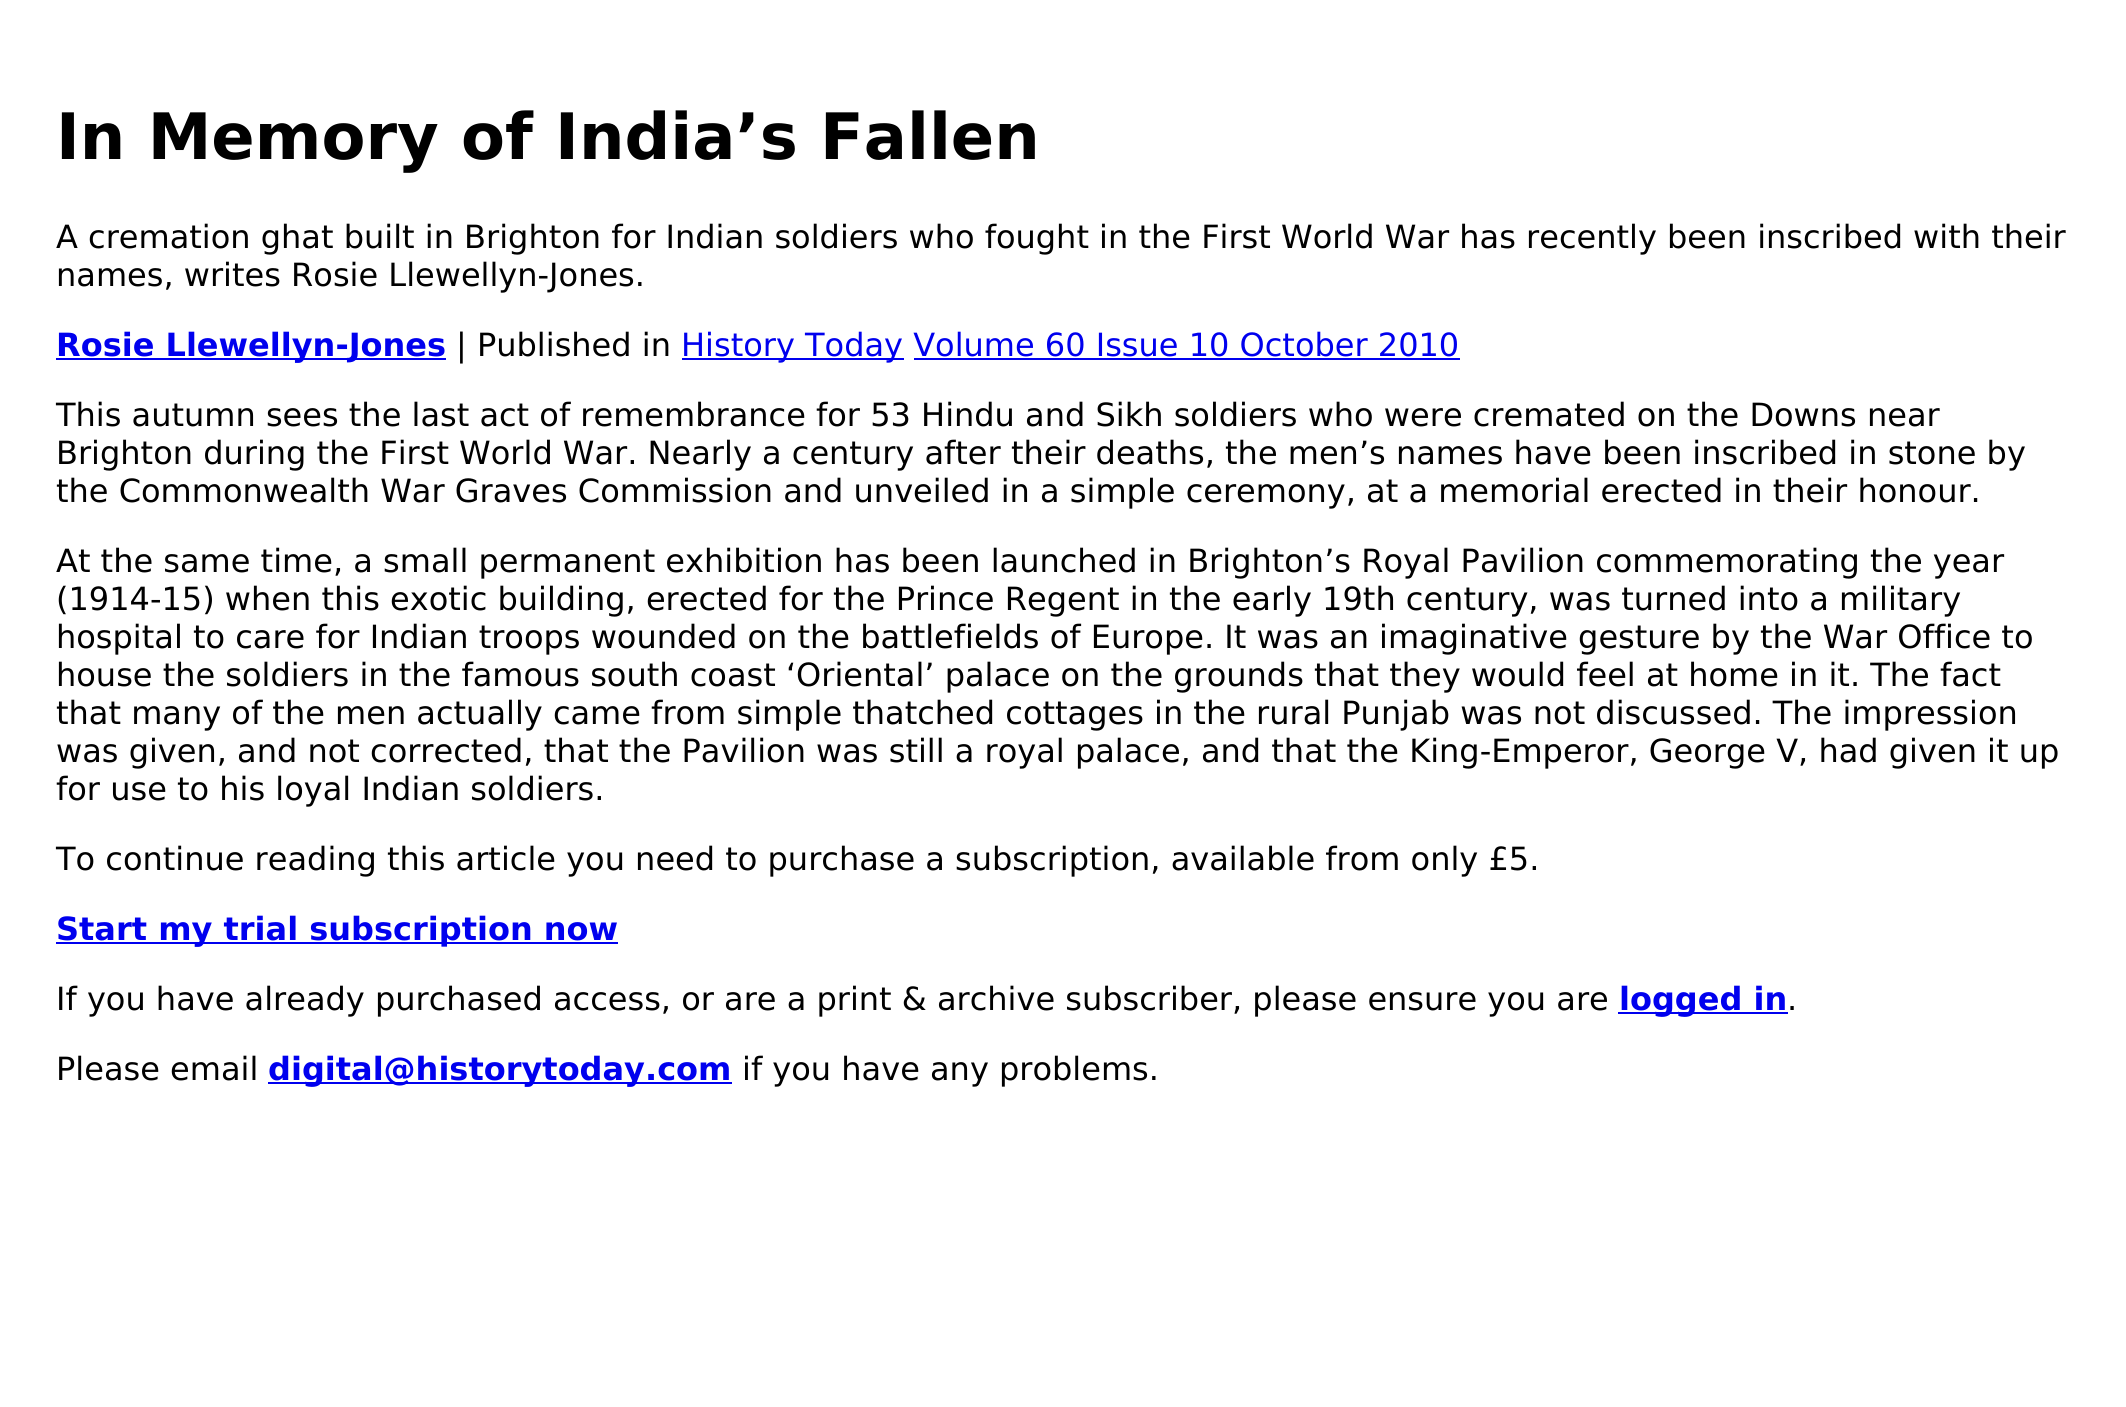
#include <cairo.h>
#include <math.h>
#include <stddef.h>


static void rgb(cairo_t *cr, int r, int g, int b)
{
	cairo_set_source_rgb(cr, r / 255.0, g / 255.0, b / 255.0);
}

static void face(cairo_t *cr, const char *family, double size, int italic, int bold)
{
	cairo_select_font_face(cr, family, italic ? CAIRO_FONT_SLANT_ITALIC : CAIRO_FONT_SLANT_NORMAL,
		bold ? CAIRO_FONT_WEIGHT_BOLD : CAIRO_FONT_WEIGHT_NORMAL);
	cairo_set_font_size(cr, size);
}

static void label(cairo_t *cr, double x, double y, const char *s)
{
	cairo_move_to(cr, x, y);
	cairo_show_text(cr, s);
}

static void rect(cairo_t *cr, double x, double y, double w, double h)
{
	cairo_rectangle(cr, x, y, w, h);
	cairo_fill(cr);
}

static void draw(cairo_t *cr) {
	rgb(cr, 255, 255, 255);
	cairo_paint(cr);
	face(cr, "DejaVu Sans", 64, 0, 1);
	rgb(cr, 0, 0, 0);
	label(cr, 56, 159, "In Memory of India’s Fallen");
	face(cr, "DejaVu Sans", 32, 0, 0);
	label(cr, 56, 248, "A cremation ghat built in Brighton for Indian soldiers who fought in the First World War has recently been inscribed with their");
	label(cr, 56, 286, "names, writes Rosie Llewellyn-Jones.");
	rgb(cr, 0, 0, 238);
	rect(cr, 56, 358, 390, 2);
	face(cr, "DejaVu Sans", 32, 0, 1);
	label(cr, 56, 356, "Rosie Llewellyn-Jones");
	face(cr, "DejaVu Sans", 32, 0, 0);
	rgb(cr, 0, 0, 0);
	label(cr, 456, 356, "| Published in");
	rgb(cr, 0, 0, 238);
	rect(cr, 682, 358, 222, 2);
	label(cr, 681, 356, "History Today Volume 60 Issue 10 October 2010");
	rect(cr, 914, 358, 546, 2);
	rgb(cr, 0, 0, 0);
	label(cr, 56, 426, "This autumn sees the last act of remembrance for 53 Hindu and Sikh soldiers who were cremated on the Downs near");
	label(cr, 56, 464, "Brighton during the First World War. Nearly a century after their deaths, the men’s names have been inscribed in stone by");
	label(cr, 56, 502, "the Commonwealth War Graves Commission and unveiled in a simple ceremony, at a memorial erected in their honour.");
	label(cr, 56, 572, "At the same time, a small permanent exhibition has been launched in Brighton’s Royal Pavilion commemorating the year");
	label(cr, 56, 610, "(1914-15) when this exotic building, erected for the Prince Regent in the early 19th century, was turned into a military");
	label(cr, 56, 648, "hospital to care for Indian troops wounded on the battlefields of Europe. It was an imaginative gesture by the War Office to");
	label(cr, 56, 686, "house the soldiers in the famous south coast ‘Oriental’ palace on the grounds that they would feel at home in it. The fact");
	label(cr, 56, 724, "that many of the men actually came from simple thatched cottages in the rural Punjab was not discussed. The impression");
	label(cr, 56, 762, "was given, and not corrected, that the Pavilion was still a royal palace, and that the King-Emperor, George V, had given it up");
	label(cr, 56, 800, "for use to his loyal Indian soldiers.");
	label(cr, 56, 870, "To continue reading this article you need to purchase a subscription, available from only £5.");
	rgb(cr, 0, 0, 238);
	rect(cr, 56, 942, 562, 2);
	face(cr, "DejaVu Sans", 32, 0, 1);
	label(cr, 56, 940, "Start my trial subscription now");
	face(cr, "DejaVu Sans", 32, 0, 0);
	rgb(cr, 0, 0, 0);
	label(cr, 56, 1010, "If you have already purchased access, or are a print & archive subscriber, please ensure you are");
	rgb(cr, 0, 0, 238);
	rect(cr, 1618, 1012, 170, 2);
	face(cr, "DejaVu Sans", 32, 0, 1);
	label(cr, 1619, 1010, "logged in");
	face(cr, "DejaVu Sans", 32, 0, 0);
	rgb(cr, 0, 0, 0);
	label(cr, 1787, 1010, ".");
	label(cr, 56, 1080, "Please email");
	rgb(cr, 0, 0, 238);
	rect(cr, 268, 1082, 464, 2);
	face(cr, "DejaVu Sans", 32, 0, 1);
	label(cr, 268, 1080, "digital@historytoday.com");
	face(cr, "DejaVu Sans", 32, 0, 0);
	rgb(cr, 0, 0, 0);
	label(cr, 742, 1080, "if you have any problems.");
}

int main(void) {
	cairo_surface_t *surface = cairo_image_surface_create(CAIRO_FORMAT_RGB24, 2126, 1407);
	cairo_t *cr = cairo_create(surface);
	cairo_font_options_t *options = cairo_font_options_create();
	cairo_font_options_set_hint_metrics(options, CAIRO_HINT_METRICS_OFF);
	cairo_font_options_set_hint_style(options, CAIRO_HINT_STYLE_NONE);
	cairo_set_font_options(cr, options);
	cairo_set_miter_limit(cr, 4);
	draw(cr);
	cairo_surface_write_to_png(surface, "render.png");
	cairo_font_options_destroy(options);
	cairo_destroy(cr);
	cairo_surface_destroy(surface);
	return 0;
}
